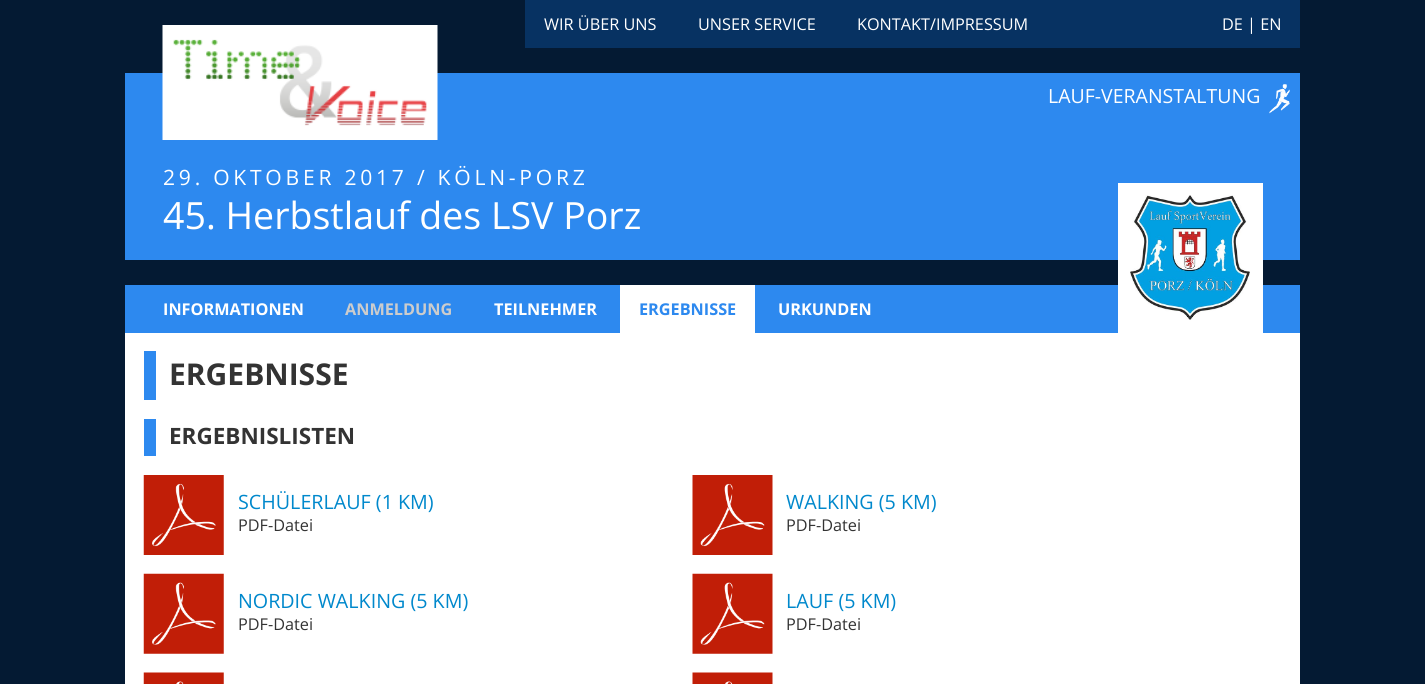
#include <cairo.h>
#include <math.h>
#include <stddef.h>


static void rgb(cairo_t *cr, int r, int g, int b)
{
	cairo_set_source_rgb(cr, r / 255.0, g / 255.0, b / 255.0);
}

static void face(cairo_t *cr, const char *family, double size, int italic, int bold)
{
	cairo_select_font_face(cr, family, italic ? CAIRO_FONT_SLANT_ITALIC : CAIRO_FONT_SLANT_NORMAL,
		bold ? CAIRO_FONT_WEIGHT_BOLD : CAIRO_FONT_WEIGHT_NORMAL);
	cairo_set_font_size(cr, size);
}

static void label(cairo_t *cr, double x, double y, const char *s)
{
	cairo_move_to(cr, x, y);
	cairo_show_text(cr, s);
}

static void tracked(cairo_t *cr, double x, double y, const char *s, double letter, double word)
{
	cairo_move_to(cr, x, y);
	while (*s) {
		char ch[5] = {0};
		int n = 0;
		do ch[n++] = *s++; while ((*s & 0xC0) == 0x80);
		cairo_show_text(cr, ch);
		cairo_rel_move_to(cr, letter + word * (*ch == ' '), 0);
	}
}

static void rect(cairo_t *cr, double x, double y, double w, double h)
{
	cairo_rectangle(cr, x, y, w, h);
	cairo_fill(cr);
}

static void image(cairo_t *cr, const char *path, double x, double y, double w, double h)
{
	cairo_surface_t *image = cairo_image_surface_create_from_png(path);
	cairo_save(cr);
	cairo_set_source_surface(cr, image, x, y);
	cairo_rectangle(cr, x, y, w, h);
	cairo_fill(cr);
	cairo_restore(cr);
	cairo_surface_destroy(image);
}

static void draw(cairo_t *cr) {
	rgb(cr, 4, 26, 51);
	cairo_paint(cr);
	rgb(cr, 45, 137, 239);
	rect(cr, 125, 73, 1175, 187);
	image(cr, "image0.png", 162, 25, 276, 115);
	rgb(cr, 7, 50, 98);
	rect(cr, 525, 0, 775, 48);
	face(cr, "Open Sans", 16.25, 0, 0);
	rgb(cr, 255, 255, 255);
	label(cr, 544, 30, "WIR ÜBER UNS");
	label(cr, 698, 30, "UNSER SERVICE");
	label(cr, 857, 30, "KONTAKT/IMPRESSUM");
	label(cr, 1222, 30, "DE | EN");
	image(cr, "image1.png", 1269, 84, 21, 30);
	face(cr, "Open Sans", 19.5, 0, 0);
	label(cr, 1048, 103, "LAUF-VERANSTALTUNG");
	face(cr, "Open Sans", 21.1, 0, 0);
	tracked(cr, 163, 185, "29. OKTOBER 2017 / KÖLN-PORZ", 3.75, 0);
	face(cr, "Open Sans", 37.5, 0, 0);
	label(cr, 163, 229, "45. Herbstlauf des LSV Porz");
	rgb(cr, 45, 137, 239);
	rect(cr, 125, 285, 1175, 48);
	face(cr, "Open Sans", 16.25, 0, 1);
	rgb(cr, 255, 255, 255);
	label(cr, 163, 315, "INFORMATIONEN");
	rgb(cr, 204, 204, 204);
	label(cr, 345, 315, "ANMELDUNG");
	rgb(cr, 255, 255, 255);
	label(cr, 494, 315, "TEILNEHMER");
	rect(cr, 620, 285, 135, 48);
	rgb(cr, 45, 137, 239);
	label(cr, 639, 315, "ERGEBNISSE");
	rgb(cr, 255, 255, 255);
	label(cr, 778, 315, "URKUNDEN");
	rect(cr, 1118, 183, 145, 150);
	image(cr, "image2.png", 1130, 195, 120, 125);
	rect(cr, 125, 333, 1175, 351);
	rgb(cr, 45, 137, 239);
	rect(cr, 144, 351, 12, 49);
	face(cr, "Open Sans", 30, 0, 1);
	rgb(cr, 51, 51, 51);
	label(cr, 169, 385, "ERGEBNISSE");
	rgb(cr, 45, 137, 239);
	rect(cr, 144, 419, 12, 37);
	face(cr, "Open Sans", 22.5, 0, 1);
	rgb(cr, 51, 51, 51);
	label(cr, 169, 444, "ERGEBNISLISTEN");
	image(cr, "image3.png", 143, 475, 81, 80);
	face(cr, "Open Sans", 19.7, 0, 0);
	rgb(cr, 0, 136, 204);
	label(cr, 238, 509, "SCHÜLERLAUF (1 KM)");
	face(cr, "Open Sans", 16.25, 0, 0);
	rgb(cr, 51, 51, 51);
	label(cr, 238, 531, "PDF-Datei");
	image(cr, "image4.png", 692, 475, 81, 80);
	face(cr, "Open Sans", 19.7, 0, 0);
	rgb(cr, 0, 136, 204);
	label(cr, 786, 509, "WALKING (5 KM)");
	face(cr, "Open Sans", 16.25, 0, 0);
	rgb(cr, 51, 51, 51);
	label(cr, 786, 531, "PDF-Datei");
	image(cr, "image5.png", 143, 573, 81, 81);
	face(cr, "Open Sans", 19.7, 0, 0);
	rgb(cr, 0, 136, 204);
	label(cr, 238, 608, "NORDIC WALKING (5 KM)");
	face(cr, "Open Sans", 16.25, 0, 0);
	rgb(cr, 51, 51, 51);
	label(cr, 238, 630, "PDF-Datei");
	image(cr, "image6.png", 692, 573, 81, 81);
	face(cr, "Open Sans", 19.7, 0, 0);
	rgb(cr, 0, 136, 204);
	label(cr, 786, 608, "LAUF (5 KM)");
	face(cr, "Open Sans", 16.25, 0, 0);
	rgb(cr, 51, 51, 51);
	label(cr, 786, 630, "PDF-Datei");
	image(cr, "image7.png", 143, 672, 81, 12);
	image(cr, "image8.png", 692, 672, 81, 12);
}

int main(void) {
	cairo_surface_t *surface = cairo_image_surface_create(CAIRO_FORMAT_RGB24, 1425, 684);
	cairo_t *cr = cairo_create(surface);
	cairo_font_options_t *options = cairo_font_options_create();
	cairo_font_options_set_hint_metrics(options, CAIRO_HINT_METRICS_OFF);
	cairo_font_options_set_hint_style(options, CAIRO_HINT_STYLE_NONE);
	cairo_set_font_options(cr, options);
	cairo_set_miter_limit(cr, 4);
	draw(cr);
	cairo_surface_write_to_png(surface, "render.png");
	cairo_font_options_destroy(options);
	cairo_destroy(cr);
	cairo_surface_destroy(surface);
	return 0;
}
